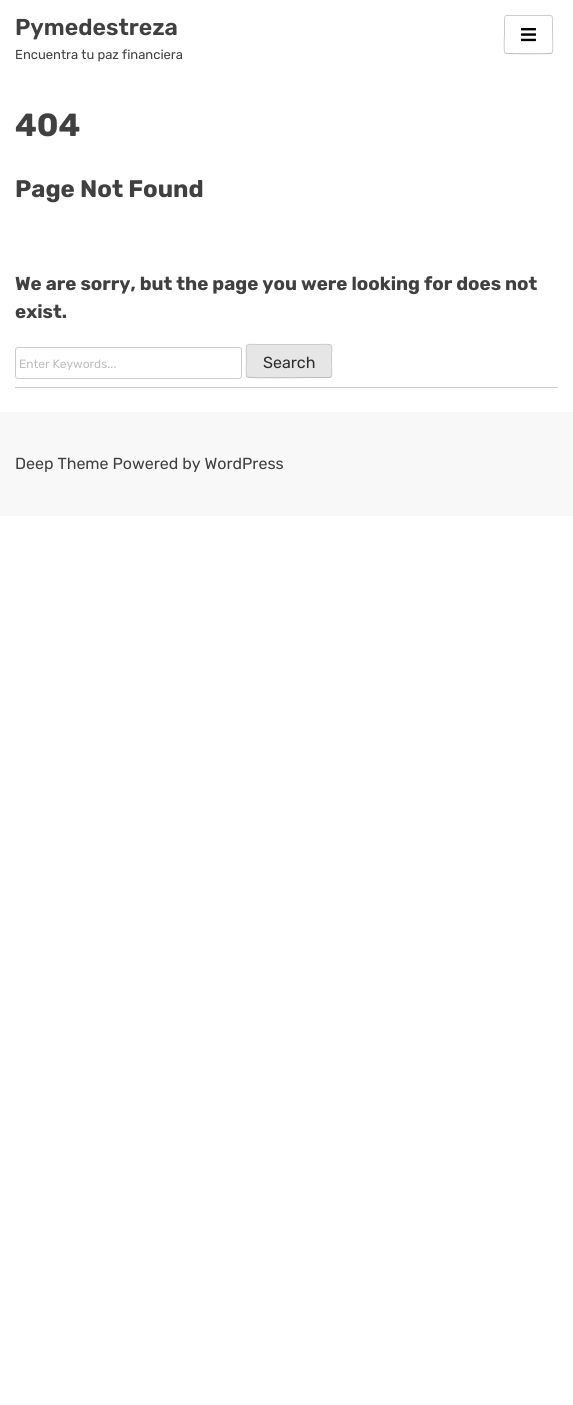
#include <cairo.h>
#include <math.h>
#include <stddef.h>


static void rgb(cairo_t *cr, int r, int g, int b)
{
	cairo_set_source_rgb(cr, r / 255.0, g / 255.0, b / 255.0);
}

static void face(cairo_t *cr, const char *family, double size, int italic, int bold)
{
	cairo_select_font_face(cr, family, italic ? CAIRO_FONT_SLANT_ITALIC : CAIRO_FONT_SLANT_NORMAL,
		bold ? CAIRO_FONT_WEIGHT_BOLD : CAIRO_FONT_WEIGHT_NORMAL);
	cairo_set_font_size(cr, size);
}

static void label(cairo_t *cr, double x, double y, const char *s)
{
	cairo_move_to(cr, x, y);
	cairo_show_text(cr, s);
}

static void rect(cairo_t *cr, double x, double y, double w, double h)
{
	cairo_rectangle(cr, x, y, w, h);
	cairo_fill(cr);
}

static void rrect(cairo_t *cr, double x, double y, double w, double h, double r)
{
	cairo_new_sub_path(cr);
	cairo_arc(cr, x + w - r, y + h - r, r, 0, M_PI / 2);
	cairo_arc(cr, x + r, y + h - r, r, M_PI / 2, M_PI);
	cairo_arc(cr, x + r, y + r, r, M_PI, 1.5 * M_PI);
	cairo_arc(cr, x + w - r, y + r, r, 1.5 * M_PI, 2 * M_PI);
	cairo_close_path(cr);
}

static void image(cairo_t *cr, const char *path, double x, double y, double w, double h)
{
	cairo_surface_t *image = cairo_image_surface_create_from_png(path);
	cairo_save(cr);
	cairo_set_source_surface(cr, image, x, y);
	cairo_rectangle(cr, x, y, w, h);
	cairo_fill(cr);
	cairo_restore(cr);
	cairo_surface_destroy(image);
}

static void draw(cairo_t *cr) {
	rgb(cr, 255, 255, 255);
	cairo_paint(cr);
	face(cr, "Rubik SemiBold", 23, 0, 0);
	rgb(cr, 64, 64, 64);
	label(cr, 15, 35, "Pymedestreza");
	face(cr, "Rubik", 13, 0, 0);
	label(cr, 15, 59, "Encuentra tu paz financiera");
	cairo_new_path(cr);
	cairo_move_to(cr, 552, 53);
	cairo_line_to(cr, 550, 53.5);
	cairo_curve_to(cr, 546, 54, 506.5, 54, 505, 53);
	rgb(cr, 187, 187, 187);
	cairo_set_line_width(cr, 1);
	cairo_stroke(cr);
	cairo_new_path(cr);
	cairo_move_to(cr, 505, 53);
	cairo_curve_to(cr, 503.5, 51, 504.5, 37.5, 504.5, 34.5);
	cairo_line_to(cr, 504.5, 23.5);
	cairo_curve_to(cr, 504.5, 14, 504, 15.5, 514, 15.5);
	cairo_line_to(cr, 543, 15.5);
	cairo_curve_to(cr, 553, 15.5, 552.5, 14, 552.5, 23.5);
	cairo_line_to(cr, 552.5, 34.5);
	cairo_curve_to(cr, 552.5, 37.5, 553.5, 51, 552, 53);
	rgb(cr, 204, 204, 204);
	cairo_stroke(cr);
	image(cr, "image0.png", 521, 28, 15, 14);
	face(cr, "Rubik", 32, 0, 1);
	rgb(cr, 64, 64, 64);
	label(cr, 15, 136, "404");
	face(cr, "Rubik", 24, 0, 1);
	label(cr, 15, 197, "Page Not Found");
	face(cr, "Rubik", 18.75, 0, 1);
	label(cr, 15, 290, "We are sorry, but the page you were looking for does not");
	label(cr, 15, 318, "exist.");
	rrect(cr, 15.5, 347.5, 226, 31, 2.5);
	rgb(cr, 204, 204, 204);
	cairo_stroke(cr);
	face(cr, "Rubik", 12, 0, 0);
	rgb(cr, 190, 190, 190);
	label(cr, 19, 368, "Enter Keywords...");
	rgb(cr, 230, 230, 230);
	rrect(cr, 246, 344, 86, 34, 3);
	cairo_fill(cr);
	cairo_new_path(cr);
	cairo_move_to(cr, 331, 377);
	cairo_line_to(cr, 329, 377.5);
	cairo_line_to(cr, 315.5, 377.5);
	cairo_curve_to(cr, 308.5, 377.5, 249.5, 378.5, 247.5, 377);
	cairo_line_to(cr, 247, 377);
	rgb(cr, 187, 187, 187);
	cairo_stroke(cr);
	cairo_new_path(cr);
	cairo_move_to(cr, 247, 377);
	cairo_curve_to(cr, 245.5, 375, 246.5, 363.5, 246.5, 361);
	cairo_curve_to(cr, 246.5, 341.5, 242.5, 344.5, 262.5, 344.5);
	cairo_line_to(cr, 315.5, 344.5);
	cairo_curve_to(cr, 335.5, 344.5, 331.5, 341.5, 331.5, 361);
	cairo_curve_to(cr, 331.5, 363.5, 332.5, 375, 331, 377);
	rgb(cr, 204, 204, 204);
	cairo_stroke(cr);
	face(cr, "Rubik", 16, 0, 0);
	rgb(cr, 46, 46, 46);
	label(cr, 263, 368, "Search");
	rgb(cr, 204, 204, 204);
	rect(cr, 15, 387, 543, 1);
	rgb(cr, 248, 248, 248);
	rect(cr, 0, 412, 573, 104);
	rgb(cr, 64, 64, 64);
	label(cr, 15, 469, "Deep Theme Powered by WordPress");
}

int main(void) {
	cairo_surface_t *surface = cairo_image_surface_create(CAIRO_FORMAT_RGB24, 573, 1405);
	cairo_t *cr = cairo_create(surface);
	cairo_font_options_t *options = cairo_font_options_create();
	cairo_font_options_set_hint_metrics(options, CAIRO_HINT_METRICS_OFF);
	cairo_font_options_set_hint_style(options, CAIRO_HINT_STYLE_NONE);
	cairo_set_font_options(cr, options);
	cairo_set_miter_limit(cr, 4);
	draw(cr);
	cairo_surface_write_to_png(surface, "render.png");
	cairo_font_options_destroy(options);
	cairo_destroy(cr);
	cairo_surface_destroy(surface);
	return 0;
}
